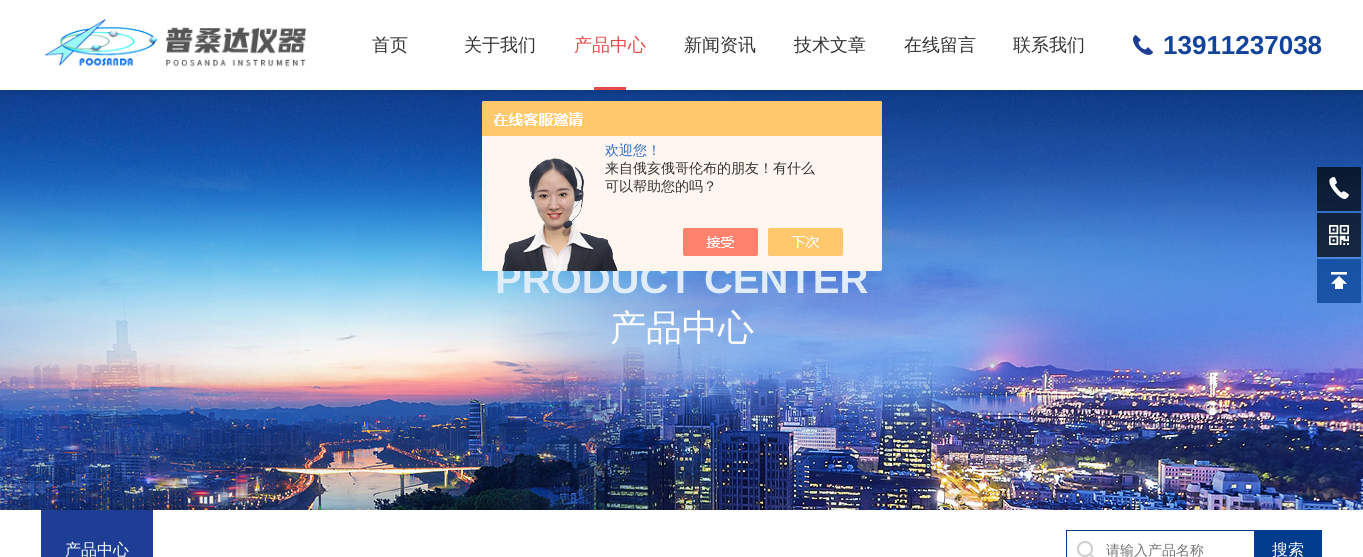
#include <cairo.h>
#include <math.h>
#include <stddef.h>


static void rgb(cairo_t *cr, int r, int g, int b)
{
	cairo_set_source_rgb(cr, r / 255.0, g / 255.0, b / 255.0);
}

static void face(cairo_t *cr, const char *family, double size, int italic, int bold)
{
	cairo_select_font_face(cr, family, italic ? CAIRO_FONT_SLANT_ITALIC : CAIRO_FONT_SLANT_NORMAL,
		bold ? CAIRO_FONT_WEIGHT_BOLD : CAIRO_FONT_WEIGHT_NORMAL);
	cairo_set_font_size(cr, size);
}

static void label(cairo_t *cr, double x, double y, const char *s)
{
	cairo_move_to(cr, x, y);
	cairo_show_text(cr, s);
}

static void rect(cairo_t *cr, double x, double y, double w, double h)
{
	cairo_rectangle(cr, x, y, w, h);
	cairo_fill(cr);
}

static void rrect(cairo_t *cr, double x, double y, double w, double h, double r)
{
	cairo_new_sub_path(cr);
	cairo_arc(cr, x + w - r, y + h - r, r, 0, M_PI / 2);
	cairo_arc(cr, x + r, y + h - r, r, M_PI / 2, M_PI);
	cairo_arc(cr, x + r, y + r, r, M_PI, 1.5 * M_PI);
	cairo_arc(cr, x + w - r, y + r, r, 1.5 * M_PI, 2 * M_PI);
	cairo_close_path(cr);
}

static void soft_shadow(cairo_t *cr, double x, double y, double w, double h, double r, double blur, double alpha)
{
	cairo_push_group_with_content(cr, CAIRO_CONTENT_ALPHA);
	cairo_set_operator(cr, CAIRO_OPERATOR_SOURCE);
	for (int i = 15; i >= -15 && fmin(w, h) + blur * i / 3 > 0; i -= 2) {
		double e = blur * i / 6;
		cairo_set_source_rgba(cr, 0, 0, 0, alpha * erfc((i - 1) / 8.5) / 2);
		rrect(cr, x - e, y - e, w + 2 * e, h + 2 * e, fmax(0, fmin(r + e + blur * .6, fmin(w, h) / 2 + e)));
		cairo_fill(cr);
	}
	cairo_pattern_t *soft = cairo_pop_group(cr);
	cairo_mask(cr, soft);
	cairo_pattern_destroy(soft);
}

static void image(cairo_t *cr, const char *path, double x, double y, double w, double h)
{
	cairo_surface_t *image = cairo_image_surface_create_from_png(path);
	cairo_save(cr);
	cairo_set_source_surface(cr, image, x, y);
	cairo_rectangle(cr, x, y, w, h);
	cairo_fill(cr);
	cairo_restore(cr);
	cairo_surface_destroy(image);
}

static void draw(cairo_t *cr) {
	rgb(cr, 255, 255, 255);
	cairo_paint(cr);
	image(cr, "image6.png", 0, 90, 1363, 420);
	cairo_save(cr);
	cairo_rectangle(cr, 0, 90, 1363, 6);
	cairo_clip(cr);
	rgb(cr, 0, 0, 0);
	soft_shadow(cr, 0, 3, 1363, 90, 0, 3, 0.1);
	cairo_restore(cr);
	image(cr, "image0.png", 44, 18, 263, 49);
	face(cr, "WenQuanYi Zen Hei Medium", 18, 0, 0);
	rgb(cr, 51, 51, 51);
	label(cr, 372, 51, "首页");
	label(cr, 464, 51, "关于我们");
	rgb(cr, 230, 75, 75);
	label(cr, 574, 51, "产品中心");
	rect(cr, 594, 87, 32, 3);
	rgb(cr, 51, 51, 51);
	label(cr, 684, 51, "新闻资讯");
	label(cr, 794, 51, "技术文章");
	label(cr, 904, 51, "在线留言");
	label(cr, 1013, 51, "联系我们");
	image(cr, "image1.png", 1133, 35, 20, 20);
	face(cr, "Liberation Sans", 26, 0, 1);
	rgb(cr, 18, 67, 155);
	label(cr, 1163, 54, "13911237038");
	face(cr, "Liberation Sans", 40, 0, 1);
	rgb(cr, 224, 236, 249);
	label(cr, 495, 293, "PRODUCT CENTER");
	image(cr, "image2.png", 482, 101, 400, 170);
	face(cr, "WenQuanYi Zen Hei Medium", 14, 0, 0);
	rgb(cr, 46, 110, 198);
	label(cr, 605, 155, "欢迎您！");
	rgb(cr, 51, 51, 51);
	label(cr, 605, 173, "来自俄亥俄哥伦布的朋友！有什么");
	label(cr, 605, 191, "可以帮助您的吗？");
	cairo_set_source_rgba(cr, 0, 0, 0, 0.7);
	rect(cr, 1317, 167, 44, 44);
	image(cr, "image3.png", 1329, 177, 20, 22);
	rect(cr, 1317, 213, 44, 44);
	image(cr, "image4.png", 1329, 225, 20, 20);
	cairo_set_source_rgba(cr, 0.004, 0.231, 0.553, 0.7);
	rect(cr, 1317, 259, 44, 44);
	image(cr, "image5.png", 1331, 272, 16, 17);
	face(cr, "WenQuanYi Zen Hei Medium", 36, 0, 0);
	rgb(cr, 255, 255, 255);
	label(cr, 610, 340, "产品中心");
	cairo_save(cr);
	cairo_rectangle(cr, 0, 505, 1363, 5);
	cairo_clip(cr);
	rgb(cr, 0, 0, 0);
	soft_shadow(cr, 0, 510, 1363, 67, 0, 6.5, 0.1);
	cairo_restore(cr);
	rgb(cr, 30, 61, 149);
	rect(cr, 41, 510, 112, 47);
	face(cr, "WenQuanYi Zen Hei Medium", 16, 0, 0);
	rgb(cr, 255, 255, 255);
	label(cr, 65, 555, "产品中心");
	image(cr, "image7.png", 1077, 541, 17, 16);
	rgb(cr, 1, 59, 141);
	rect(cr, 1066, 530, 188, 1);
	rect(cr, 1066, 530, 1, 27);
	face(cr, "WenQuanYi Zen Hei Medium", 14, 0, 0);
	rgb(cr, 117, 117, 117);
	label(cr, 1106, 555, "请输入产品名称");
	rgb(cr, 1, 59, 141);
	rect(cr, 1254, 530, 68, 27);
	face(cr, "WenQuanYi Zen Hei Medium", 16, 0, 0);
	rgb(cr, 255, 255, 255);
	label(cr, 1272, 555, "搜索");
}

int main(void) {
	cairo_surface_t *surface = cairo_image_surface_create(CAIRO_FORMAT_RGB24, 1363, 557);
	cairo_t *cr = cairo_create(surface);
	cairo_font_options_t *options = cairo_font_options_create();
	cairo_font_options_set_hint_metrics(options, CAIRO_HINT_METRICS_OFF);
	cairo_font_options_set_hint_style(options, CAIRO_HINT_STYLE_NONE);
	cairo_set_font_options(cr, options);
	cairo_set_miter_limit(cr, 4);
	draw(cr);
	cairo_surface_write_to_png(surface, "render.png");
	cairo_font_options_destroy(options);
	cairo_destroy(cr);
	cairo_surface_destroy(surface);
	return 0;
}
